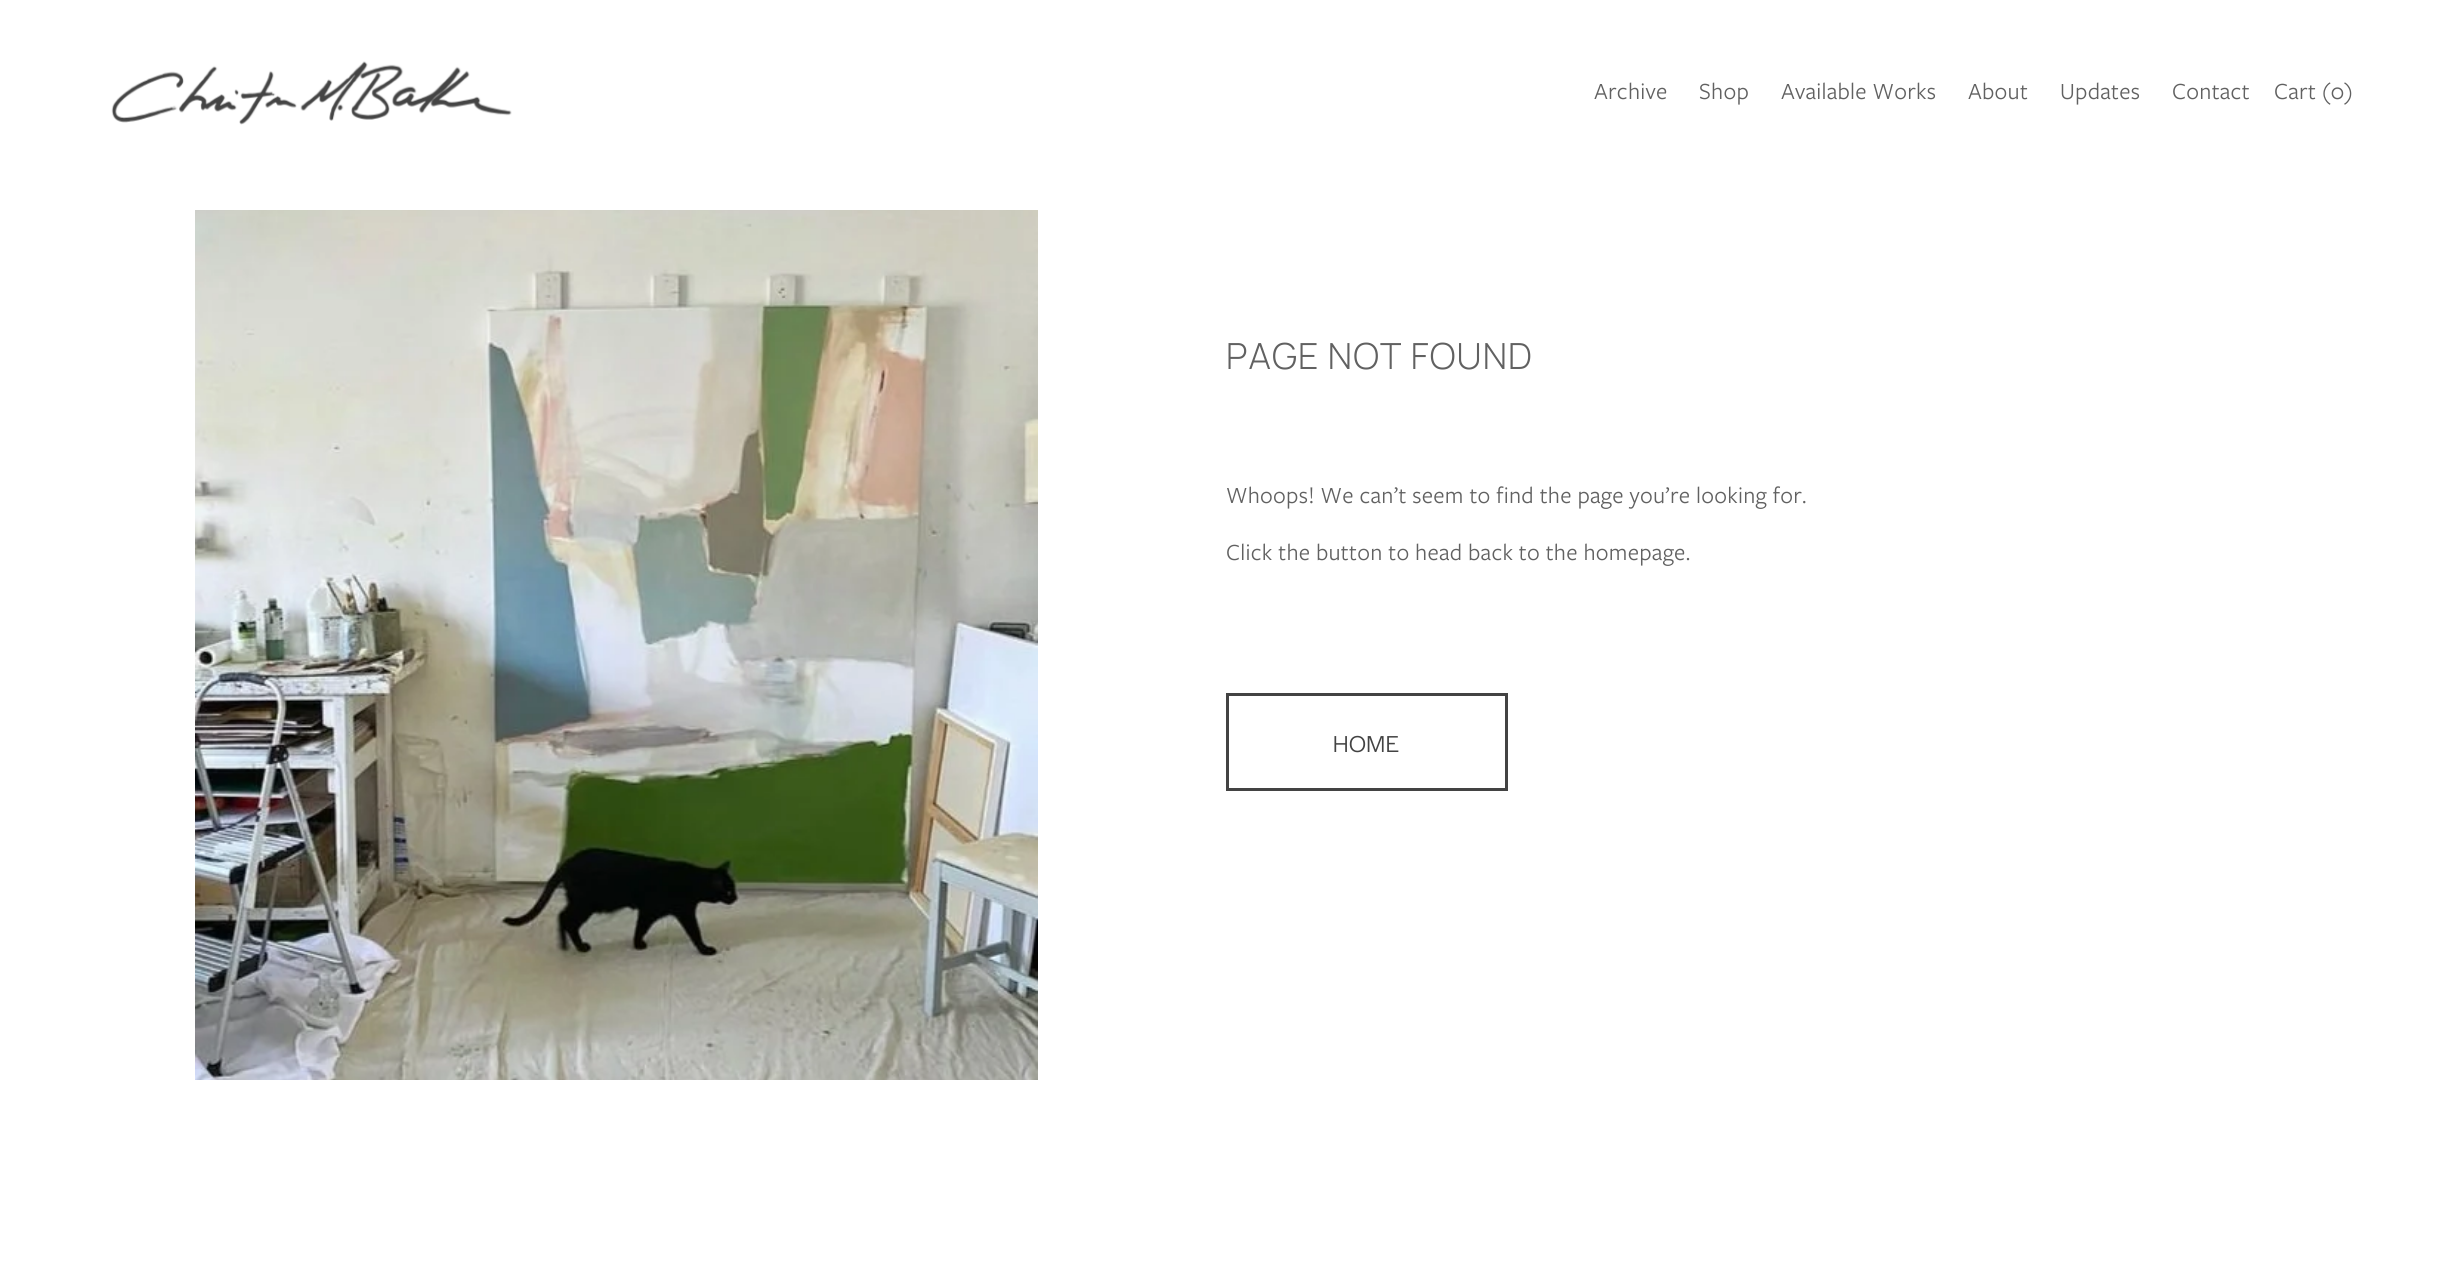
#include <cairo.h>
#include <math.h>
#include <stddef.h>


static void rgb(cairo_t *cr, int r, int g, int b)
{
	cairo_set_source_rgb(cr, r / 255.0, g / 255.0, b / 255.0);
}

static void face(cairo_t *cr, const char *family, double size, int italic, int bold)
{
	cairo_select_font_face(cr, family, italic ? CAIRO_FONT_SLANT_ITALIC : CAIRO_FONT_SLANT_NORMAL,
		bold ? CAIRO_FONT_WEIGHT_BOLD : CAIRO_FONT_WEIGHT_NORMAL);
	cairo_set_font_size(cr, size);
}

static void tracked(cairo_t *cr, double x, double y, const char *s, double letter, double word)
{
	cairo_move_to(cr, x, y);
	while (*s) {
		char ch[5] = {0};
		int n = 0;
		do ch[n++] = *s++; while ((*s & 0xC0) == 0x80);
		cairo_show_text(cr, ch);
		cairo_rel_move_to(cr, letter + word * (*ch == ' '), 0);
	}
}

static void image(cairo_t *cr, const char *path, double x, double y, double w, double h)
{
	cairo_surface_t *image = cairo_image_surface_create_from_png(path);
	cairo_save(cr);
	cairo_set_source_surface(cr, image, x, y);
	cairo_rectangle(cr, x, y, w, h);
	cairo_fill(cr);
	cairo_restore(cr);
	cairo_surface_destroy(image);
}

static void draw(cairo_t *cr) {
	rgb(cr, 255, 255, 255);
	cairo_paint(cr);
	image(cr, "image0.png", 111, 61, 401, 64);
	face(cr, "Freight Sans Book", 24, 0, 0);
	rgb(cr, 97, 97, 97);
	tracked(cr, 1594, 99, "Archive", 0.25, 0);
	tracked(cr, 1699, 99, "Shop", 0.25, 0);
	tracked(cr, 1781, 99, "Available Works", 0.25, 0);
	tracked(cr, 1968, 99, "About", 0.25, 0);
	tracked(cr, 2060, 99, "Updates", 0.25, 0);
	tracked(cr, 2172, 99, "Contact", 0.25, 0);
	tracked(cr, 2274, 99, "Cart (0)", 0.25, 0);
	image(cr, "image1.png", 195, 210, 843, 870);
	face(cr, "Manrope Light", 36, 0, 0);
	tracked(cr, 1226, 369, "PAGE NOT FOUND", 1.1, 0);
	face(cr, "Freight Sans Book", 24, 0, 0);
	tracked(cr, 1226, 503, "Whoops! We can’t seem to find the page you’re looking for.", 0.25, 0);
	tracked(cr, 1226, 560, "Click the button to head back to the homepage.", 0.25, 0);
	cairo_rectangle(cr, 1227.5, 694.5, 279, 95);
	rgb(cr, 67, 67, 67);
	cairo_set_line_width(cr, 3);
	cairo_stroke(cr);
	face(cr, "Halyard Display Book", 24, 0, 0);
	tracked(cr, 1333, 752, "HOME", 0.5, 0);
}

int main(void) {
	cairo_surface_t *surface = cairo_image_surface_create(CAIRO_FORMAT_RGB24, 2450, 1283);
	cairo_t *cr = cairo_create(surface);
	cairo_font_options_t *options = cairo_font_options_create();
	cairo_font_options_set_hint_metrics(options, CAIRO_HINT_METRICS_OFF);
	cairo_font_options_set_hint_style(options, CAIRO_HINT_STYLE_NONE);
	cairo_set_font_options(cr, options);
	cairo_set_miter_limit(cr, 4);
	draw(cr);
	cairo_surface_write_to_png(surface, "render.png");
	cairo_font_options_destroy(options);
	cairo_destroy(cr);
	cairo_surface_destroy(surface);
	return 0;
}
